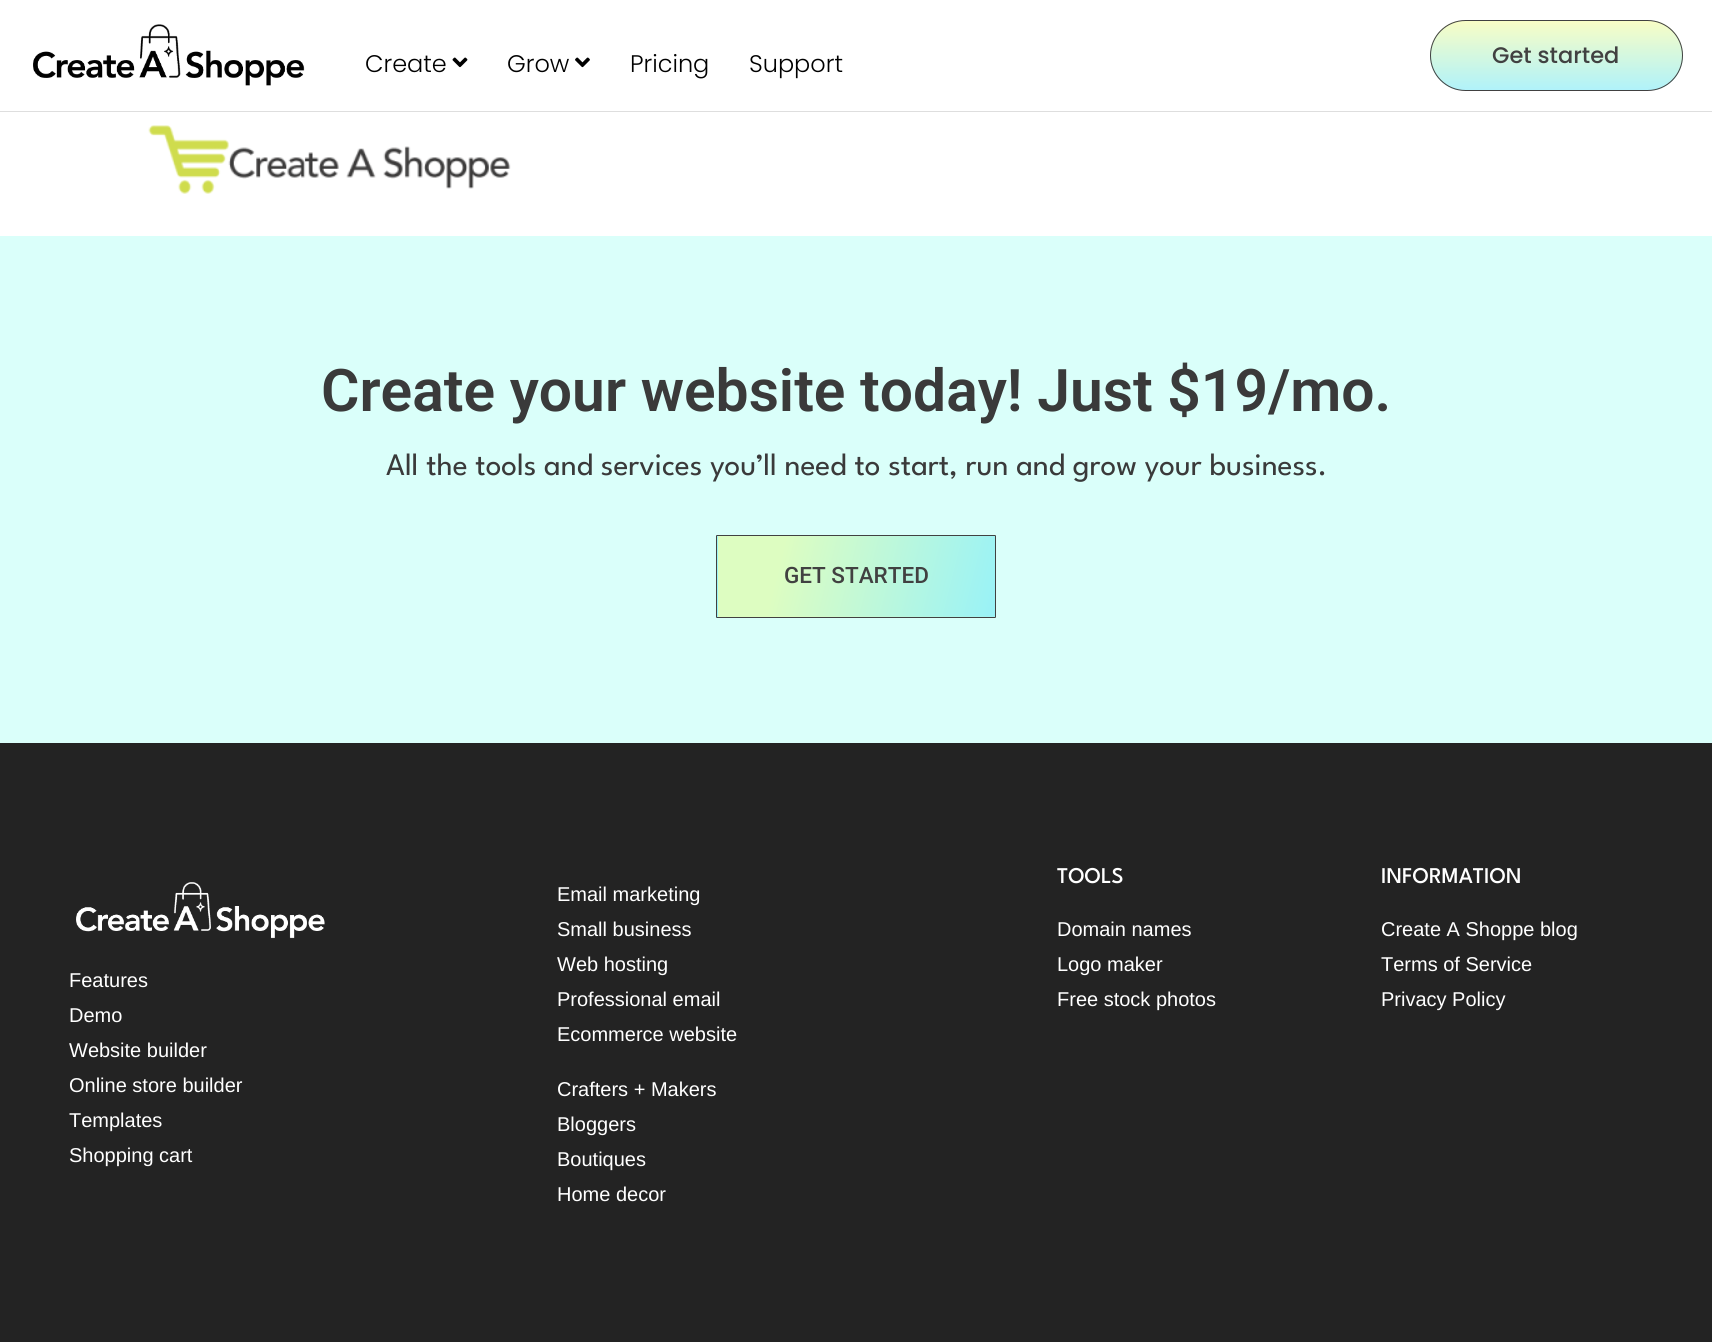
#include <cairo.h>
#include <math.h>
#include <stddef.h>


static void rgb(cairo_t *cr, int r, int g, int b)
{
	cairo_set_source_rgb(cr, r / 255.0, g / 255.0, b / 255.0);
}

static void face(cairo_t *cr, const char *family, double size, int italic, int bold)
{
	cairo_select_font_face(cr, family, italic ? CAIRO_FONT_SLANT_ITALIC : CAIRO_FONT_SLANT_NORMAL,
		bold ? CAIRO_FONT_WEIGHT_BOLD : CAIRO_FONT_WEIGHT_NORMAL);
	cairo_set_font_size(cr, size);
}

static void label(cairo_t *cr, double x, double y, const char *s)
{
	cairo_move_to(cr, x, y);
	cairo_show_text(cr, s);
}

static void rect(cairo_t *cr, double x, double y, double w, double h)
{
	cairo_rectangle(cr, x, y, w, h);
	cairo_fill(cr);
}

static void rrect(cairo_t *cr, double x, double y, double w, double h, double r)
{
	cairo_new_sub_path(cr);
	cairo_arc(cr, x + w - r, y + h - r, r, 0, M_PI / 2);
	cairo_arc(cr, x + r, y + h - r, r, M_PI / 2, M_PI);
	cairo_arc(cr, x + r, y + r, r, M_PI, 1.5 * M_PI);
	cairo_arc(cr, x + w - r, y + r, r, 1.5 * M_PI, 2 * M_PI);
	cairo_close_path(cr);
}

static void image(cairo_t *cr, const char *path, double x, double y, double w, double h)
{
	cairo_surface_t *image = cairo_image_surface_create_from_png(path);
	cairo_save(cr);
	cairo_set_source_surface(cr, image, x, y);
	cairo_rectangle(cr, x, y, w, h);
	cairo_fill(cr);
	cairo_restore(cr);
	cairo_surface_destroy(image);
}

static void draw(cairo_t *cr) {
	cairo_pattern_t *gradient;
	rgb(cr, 255, 255, 255);
	cairo_paint(cr);
	rgb(cr, 222, 222, 222);
	rect(cr, 0, 111, 1712, 1);
	image(cr, "image0.png", 33, 24, 272, 62);
	face(cr, "Poppins Light", 24, 0, 0);
	rgb(cr, 0, 0, 0);
	label(cr, 365, 72, "Create");
	image(cr, "image1.png", 452, 57, 16, 11);
	label(cr, 507, 72, "Grow");
	image(cr, "image2.png", 575, 57, 15, 11);
	label(cr, 630, 72, "Pricing");
	label(cr, 749, 72, "Support");
	cairo_save(cr);
	rrect(cr, 1430, 20, 253, 71, 35.5);
	cairo_clip(cr);
	gradient = cairo_pattern_create_linear(1556, 21, 1556, 90);
	cairo_pattern_add_color_stop_rgba(gradient, 0, 0.973, 0.992, 0.773, 1);
	cairo_pattern_add_color_stop_rgba(gradient, 1, 0.69, 0.949, 0.98, 1);
	cairo_set_source(cr, gradient);
	cairo_pattern_destroy(gradient);
	rect(cr, 1430, 21, 253, 69);
	cairo_restore(cr);
	rrect(cr, 1430.5, 20.5, 252, 70, 35);
	rgb(cr, 65, 65, 65);
	cairo_set_line_width(cr, 1);
	cairo_stroke(cr);
	face(cr, "Poppins Medium", 22.5, 0, 0);
	label(cr, 1492, 63, "Get started");
	image(cr, "image3.png", 148, 125, 363, 69);
	rgb(cr, 218, 255, 250);
	rect(cr, 0, 236, 1712, 507);
	face(cr, "Roboto SemiBold", 58.75, 0, 0);
	rgb(cr, 58, 58, 58);
	label(cr, 321, 411, "Create your website today! Just $19/mo.");
	face(cr, "League Spartan", 31.25, 0, 0);
	label(cr, 386, 475, "All the tools and services you’ll need to start, run and grow your business.");
	gradient = cairo_pattern_create_linear(439, 541, 719, 611);
	cairo_pattern_add_color_stop_rgba(gradient, 0.23, 0.867, 0.992, 0.757, 1);
	cairo_pattern_add_color_stop_rgba(gradient, 1, 0.6, 0.949, 0.969, 1);
	cairo_set_source(cr, gradient);
	cairo_pattern_destroy(gradient);
	rect(cr, 717, 536, 1, 80);
	gradient = cairo_pattern_create_linear(716, 541, 996, 611);
	cairo_pattern_add_color_stop_rgba(gradient, 0.23, 0.867, 0.992, 0.757, 1);
	cairo_pattern_add_color_stop_rgba(gradient, 1, 0.6, 0.949, 0.969, 1);
	cairo_set_source(cr, gradient);
	cairo_pattern_destroy(gradient);
	rect(cr, 718, 536, 277, 80);
	gradient = cairo_pattern_create_linear(439, 621, 719, 691);
	cairo_pattern_add_color_stop_rgba(gradient, 0.23, 0.867, 0.992, 0.757, 1);
	cairo_pattern_add_color_stop_rgba(gradient, 1, 0.6, 0.949, 0.969, 1);
	cairo_set_source(cr, gradient);
	cairo_pattern_destroy(gradient);
	cairo_new_path(cr);
	cairo_move_to(cr, 716, 616);
	cairo_line_to(cr, 718, 616);
	cairo_line_to(cr, 718, 618);
	cairo_line_to(cr, 717, 618);
	cairo_curve_to(cr, 716.5, 618, 716, 617.5, 716, 617);
	cairo_close_path(cr);
	cairo_fill(cr);
	gradient = cairo_pattern_create_linear(716, 621, 996, 691);
	cairo_pattern_add_color_stop_rgba(gradient, 0.23, 0.867, 0.992, 0.757, 1);
	cairo_pattern_add_color_stop_rgba(gradient, 1, 0.6, 0.949, 0.969, 1);
	cairo_set_source(cr, gradient);
	cairo_pattern_destroy(gradient);
	rect(cr, 718, 616, 277, 1);
	rrect(cr, 716.5, 535.5, 279, 82, 0.5);
	rgb(cr, 65, 65, 65);
	cairo_stroke(cr);
	face(cr, "Roboto Medium", 22.5, 0, 0);
	label(cr, 784, 583, "GET STARTED");
	rgb(cr, 35, 35, 35);
	rect(cr, 0, 743, 1712, 599);
	image(cr, "image4.png", 76, 882, 249, 57);
	face(cr, "Liberation Sans", 20, 0, 0);
	rgb(cr, 255, 255, 255);
	label(cr, 69, 987, "Features");
	label(cr, 69, 1022, "Demo");
	label(cr, 69, 1057, "Website builder");
	label(cr, 69, 1092, "Online store builder");
	label(cr, 69, 1127, "Templates");
	label(cr, 69, 1162, "Shopping cart");
	label(cr, 557, 901, "Email marketing");
	label(cr, 557, 936, "Small business");
	label(cr, 557, 971, "Web hosting");
	label(cr, 557, 1006, "Professional email");
	label(cr, 557, 1041, "Ecommerce website");
	label(cr, 557, 1096, "Crafters + Makers");
	label(cr, 557, 1131, "Bloggers");
	label(cr, 557, 1166, "Boutiques");
	label(cr, 557, 1201, "Home decor");
	face(cr, "League Spartan Medium", 22.5, 0, 0);
	label(cr, 1057, 883, "TOOLS");
	face(cr, "Liberation Sans", 20, 0, 0);
	label(cr, 1057, 936, "Domain names");
	label(cr, 1057, 971, "Logo maker");
	label(cr, 1057, 1006, "Free stock photos");
	face(cr, "League Spartan Medium", 22.5, 0, 0);
	label(cr, 1381, 883, "INFORMATION");
	face(cr, "Liberation Sans", 20, 0, 0);
	label(cr, 1381, 936, "Create A Shoppe blog");
	label(cr, 1381, 971, "Terms of Service");
	label(cr, 1381, 1006, "Privacy Policy");
}

int main(void) {
	cairo_surface_t *surface = cairo_image_surface_create(CAIRO_FORMAT_RGB24, 1712, 1342);
	cairo_t *cr = cairo_create(surface);
	cairo_font_options_t *options = cairo_font_options_create();
	cairo_font_options_set_hint_metrics(options, CAIRO_HINT_METRICS_OFF);
	cairo_font_options_set_hint_style(options, CAIRO_HINT_STYLE_NONE);
	cairo_set_font_options(cr, options);
	cairo_set_miter_limit(cr, 4);
	draw(cr);
	cairo_surface_write_to_png(surface, "render.png");
	cairo_font_options_destroy(options);
	cairo_destroy(cr);
	cairo_surface_destroy(surface);
	return 0;
}
